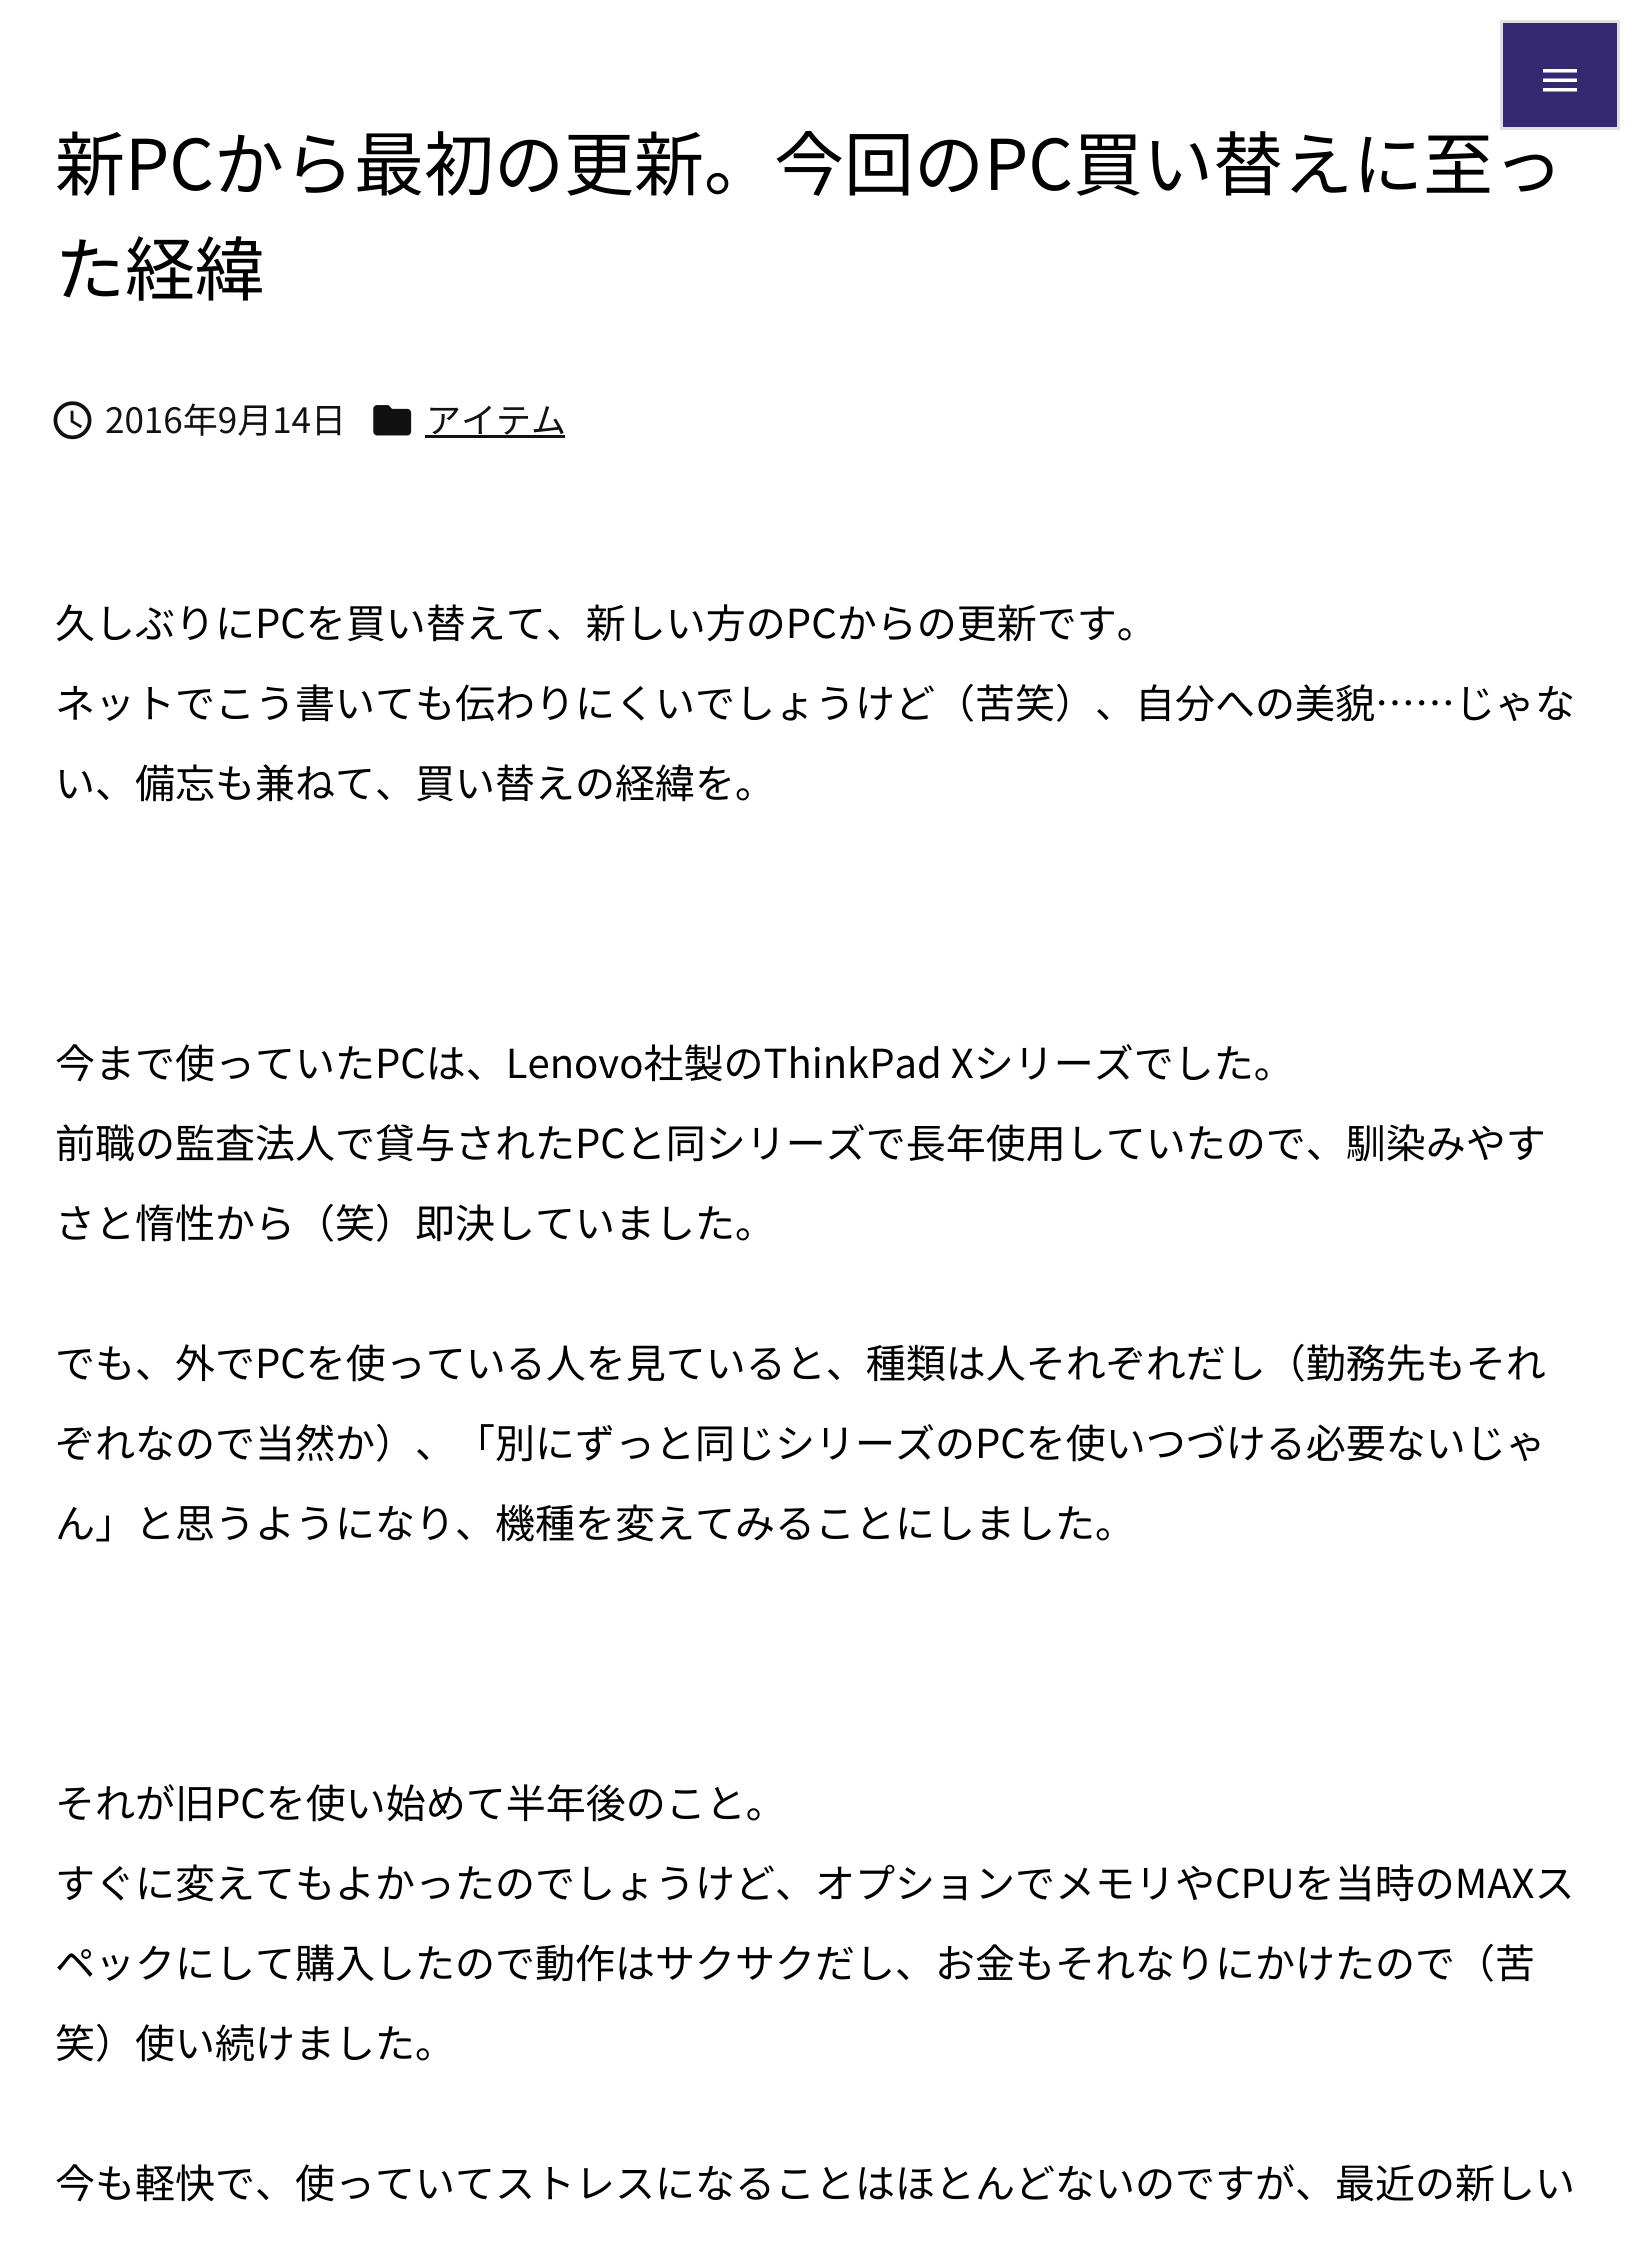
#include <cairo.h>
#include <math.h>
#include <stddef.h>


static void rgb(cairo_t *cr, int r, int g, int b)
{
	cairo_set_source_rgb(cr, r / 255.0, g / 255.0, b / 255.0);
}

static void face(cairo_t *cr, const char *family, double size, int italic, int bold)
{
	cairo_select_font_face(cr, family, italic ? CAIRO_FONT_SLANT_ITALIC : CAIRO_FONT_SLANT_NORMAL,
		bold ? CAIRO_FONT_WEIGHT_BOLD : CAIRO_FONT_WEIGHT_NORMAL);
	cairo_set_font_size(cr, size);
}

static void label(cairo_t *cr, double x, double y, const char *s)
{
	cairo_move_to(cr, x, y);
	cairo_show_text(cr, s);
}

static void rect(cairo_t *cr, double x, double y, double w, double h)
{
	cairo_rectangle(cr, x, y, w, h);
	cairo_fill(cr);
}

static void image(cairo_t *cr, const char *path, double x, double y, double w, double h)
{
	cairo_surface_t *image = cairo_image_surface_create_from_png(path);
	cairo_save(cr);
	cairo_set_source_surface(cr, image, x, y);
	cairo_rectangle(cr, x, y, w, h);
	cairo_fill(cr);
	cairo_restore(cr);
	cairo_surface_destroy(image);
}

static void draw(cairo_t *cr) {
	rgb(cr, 255, 255, 255);
	cairo_paint(cr);
	rgb(cr, 52, 41, 112);
	cairo_rectangle(cr, 1501.5, 21.5, 117, 107);
	cairo_fill_preserve(cr);
	rgb(cr, 224, 224, 224);
	cairo_set_line_width(cr, 3);
	cairo_stroke(cr);
	rgb(cr, 255, 255, 255);
	cairo_new_path(cr);
	cairo_move_to(cr, 1543, 69);
	cairo_line_to(cr, 1577, 69);
	cairo_line_to(cr, 1577, 72.5);
	cairo_line_to(cr, 1543, 72.5);
	cairo_close_path(cr);
	cairo_move_to(cr, 1543, 82);
	cairo_line_to(cr, 1543, 78.5);
	cairo_line_to(cr, 1577, 78.5);
	cairo_line_to(cr, 1577, 82);
	cairo_close_path(cr);
	cairo_move_to(cr, 1543, 91.5);
	cairo_line_to(cr, 1543, 88);
	cairo_line_to(cr, 1577, 88);
	cairo_line_to(cr, 1577, 91.5);
	cairo_close_path(cr);
	cairo_fill(cr);
	face(cr, "Noto Sans JP Thin", 70, 0, 0);
	rgb(cr, 0, 0, 0);
	label(cr, 55, 190, "新PCから最初の更新。今回のPC買い替えに至っ");
	label(cr, 55, 295, "た経緯");
	image(cr, "image0.png", 53, 401, 39, 39);
	face(cr, "Noto Sans JP Thin", 35, 0, 0);
	rgb(cr, 17, 17, 17);
	label(cr, 105, 433, "2016年9月14日");
	image(cr, "image1.png", 373, 405, 39, 31);
	label(cr, 426, 433, "アイテム");
	rect(cr, 425, 435, 140, 3);
	face(cr, "Noto Sans JP Thin", 40, 0, 0);
	rgb(cr, 0, 0, 0);
	label(cr, 55, 638, "久しぶりにPCを買い替えて、新しい方のPCからの更新です。");
	label(cr, 55, 718, "ネットでこう書いても伝わりにくいでしょうけど（苦笑）、自分への美貌……じゃな");
	label(cr, 55, 798, "い、備忘も兼ねて、買い替えの経緯を。");
	label(cr, 55, 1078, "今まで使っていたPCは、Lenovo社製のThinkPad Xシリーズでした。");
	label(cr, 55, 1158, "前職の監査法人で貸与されたPCと同シリーズで長年使用していたので、馴染みやす");
	label(cr, 55, 1238, "さと惰性から（笑）即決していました。");
	label(cr, 55, 1378, "でも、外でPCを使っている人を見ていると、種類は人それぞれだし（勤務先もそれ");
	label(cr, 55, 1458, "ぞれなので当然か）、「別にずっと同じシリーズのPCを使いつづける必要ないじゃ");
	label(cr, 55, 1538, "ん」と思うようになり、機種を変えてみることにしました。");
	label(cr, 55, 1818, "それが旧PCを使い始めて半年後のこと。");
	label(cr, 55, 1898, "すぐに変えてもよかったのでしょうけど、オプションでメモリやCPUを当時のMAXス");
	label(cr, 55, 1978, "ペックにして購入したので動作はサクサクだし、お金もそれなりにかけたので（苦");
	label(cr, 55, 2058, "笑）使い続けました。");
	label(cr, 55, 2198, "今も軽快で、使っていてストレスになることはほとんどないのですが、最近の新しい");
}

int main(void) {
	cairo_surface_t *surface = cairo_image_surface_create(CAIRO_FORMAT_RGB24, 1632, 2242);
	cairo_t *cr = cairo_create(surface);
	cairo_font_options_t *options = cairo_font_options_create();
	cairo_font_options_set_hint_metrics(options, CAIRO_HINT_METRICS_OFF);
	cairo_font_options_set_hint_style(options, CAIRO_HINT_STYLE_NONE);
	cairo_set_font_options(cr, options);
	cairo_set_miter_limit(cr, 4);
	draw(cr);
	cairo_surface_write_to_png(surface, "render.png");
	cairo_font_options_destroy(options);
	cairo_destroy(cr);
	cairo_surface_destroy(surface);
	return 0;
}
